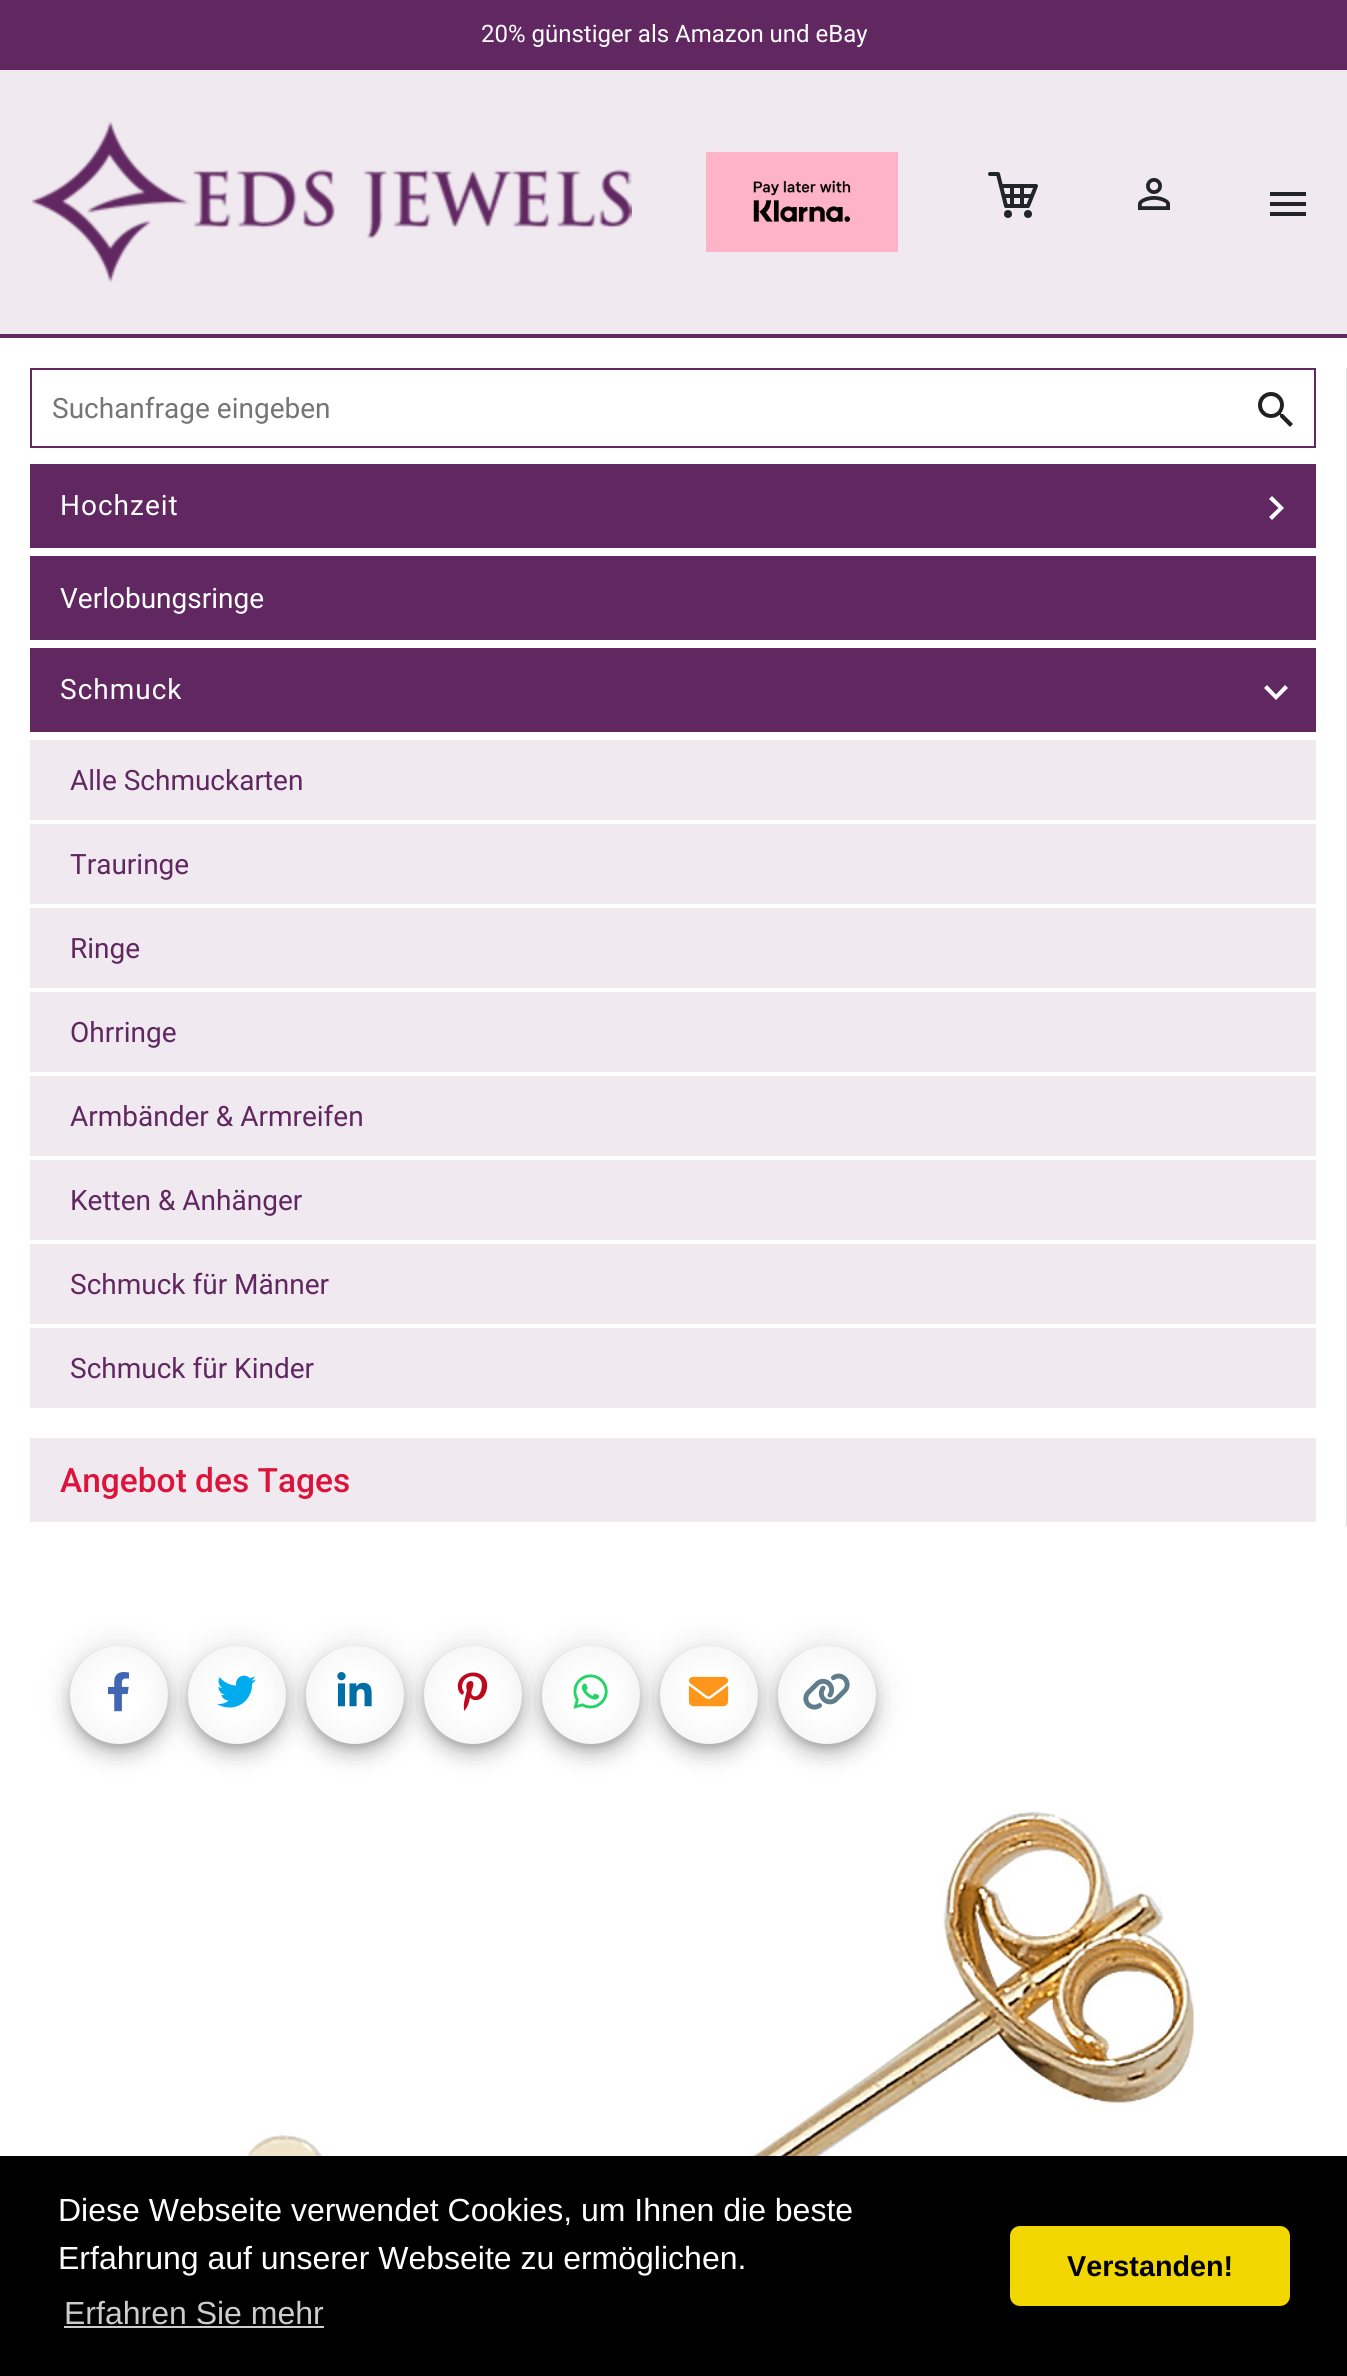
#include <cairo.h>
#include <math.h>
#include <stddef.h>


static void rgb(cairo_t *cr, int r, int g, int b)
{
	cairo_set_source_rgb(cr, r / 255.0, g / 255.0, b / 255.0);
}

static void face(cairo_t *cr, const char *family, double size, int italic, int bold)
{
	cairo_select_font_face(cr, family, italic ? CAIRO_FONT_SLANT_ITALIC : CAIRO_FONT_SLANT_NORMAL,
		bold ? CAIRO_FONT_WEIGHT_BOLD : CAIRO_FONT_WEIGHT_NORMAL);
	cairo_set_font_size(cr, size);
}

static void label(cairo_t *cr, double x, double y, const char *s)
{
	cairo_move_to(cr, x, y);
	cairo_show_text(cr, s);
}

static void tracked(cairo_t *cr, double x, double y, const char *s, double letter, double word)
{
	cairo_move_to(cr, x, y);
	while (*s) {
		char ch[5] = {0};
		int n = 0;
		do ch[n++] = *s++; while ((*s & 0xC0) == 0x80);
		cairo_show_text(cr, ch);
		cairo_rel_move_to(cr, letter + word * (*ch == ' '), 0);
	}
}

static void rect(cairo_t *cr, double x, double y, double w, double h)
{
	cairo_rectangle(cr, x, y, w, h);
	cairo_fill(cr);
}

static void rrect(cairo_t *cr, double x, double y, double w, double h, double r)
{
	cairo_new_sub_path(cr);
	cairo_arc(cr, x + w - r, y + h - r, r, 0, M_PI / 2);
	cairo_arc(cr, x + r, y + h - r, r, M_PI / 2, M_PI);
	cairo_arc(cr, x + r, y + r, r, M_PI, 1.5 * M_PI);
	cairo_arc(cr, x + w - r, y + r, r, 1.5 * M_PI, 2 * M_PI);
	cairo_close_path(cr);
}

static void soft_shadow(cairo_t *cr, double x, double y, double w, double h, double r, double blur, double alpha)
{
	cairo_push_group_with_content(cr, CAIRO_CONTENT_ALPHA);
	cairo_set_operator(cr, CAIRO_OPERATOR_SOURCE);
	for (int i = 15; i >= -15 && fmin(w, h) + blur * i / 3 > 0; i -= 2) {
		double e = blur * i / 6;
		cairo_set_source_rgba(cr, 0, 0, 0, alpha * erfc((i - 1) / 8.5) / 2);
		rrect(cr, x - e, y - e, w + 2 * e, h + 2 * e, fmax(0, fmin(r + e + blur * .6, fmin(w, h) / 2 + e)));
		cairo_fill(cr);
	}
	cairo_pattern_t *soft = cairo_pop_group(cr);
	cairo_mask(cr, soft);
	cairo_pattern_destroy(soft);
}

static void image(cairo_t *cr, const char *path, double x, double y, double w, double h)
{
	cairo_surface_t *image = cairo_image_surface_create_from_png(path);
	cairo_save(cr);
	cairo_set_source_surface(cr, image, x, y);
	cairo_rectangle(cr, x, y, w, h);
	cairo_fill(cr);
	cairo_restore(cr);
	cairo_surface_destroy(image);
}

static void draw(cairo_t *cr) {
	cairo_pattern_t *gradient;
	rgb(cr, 97, 39, 97);
	cairo_paint(cr);
	face(cr, "Roboto", 24, 0, 0);
	rgb(cr, 255, 255, 255);
	label(cr, 481, 42, "20% günstiger als Amazon und eBay");
	rgb(cr, 240, 234, 240);
	rect(cr, 0, 70, 1347, 264);
	image(cr, "image0.png", 32, 121, 600, 162);
	image(cr, "image1.png", 706, 152, 192, 100);
	cairo_new_path(cr);
	cairo_move_to(cr, 990, 174);
	cairo_line_to(cr, 998, 174);
	cairo_line_to(cr, 1006, 206);
	cairo_line_to(cr, 1028, 206);
	cairo_line_to(cr, 1036, 186);
	cairo_line_to(cr, 1002, 186);
	cairo_move_to(cr, 1012, 186);
	cairo_line_to(cr, 1012, 206);
	cairo_move_to(cr, 1022, 206);
	cairo_line_to(cr, 1022, 186);
	cairo_move_to(cr, 1006, 196);
	cairo_line_to(cr, 1032, 196);
	rgb(cr, 33, 37, 41);
	cairo_set_line_width(cr, 4);
	cairo_set_line_cap(cr, CAIRO_LINE_CAP_ROUND);
	cairo_set_line_join(cr, CAIRO_LINE_JOIN_ROUND);
	cairo_stroke(cr);
	cairo_arc(cr, 1008, 214, 4, 0, 2 * M_PI);
	cairo_fill(cr);
	cairo_arc(cr, 1028, 214, 4, 0, 2 * M_PI);
	cairo_fill(cr);
	image(cr, "image2.png", 1137, 178, 34, 32);
	cairo_new_path(cr);
	cairo_move_to(cr, 1270, 192);
	cairo_line_to(cr, 1306, 192);
	cairo_line_to(cr, 1306, 196);
	cairo_line_to(cr, 1270, 196);
	cairo_close_path(cr);
	cairo_move_to(cr, 1270, 206);
	cairo_line_to(cr, 1270, 202);
	cairo_line_to(cr, 1306, 202);
	cairo_line_to(cr, 1306, 206);
	cairo_close_path(cr);
	cairo_move_to(cr, 1270, 216);
	cairo_line_to(cr, 1270, 212);
	cairo_line_to(cr, 1306, 212);
	cairo_line_to(cr, 1306, 216);
	cairo_close_path(cr);
	cairo_fill(cr);
	rgb(cr, 255, 255, 255);
	rect(cr, 0, 338, 1347, 1818);
	rgb(cr, 224, 224, 224);
	rect(cr, 1346, 368, 1, 1158);
	cairo_rectangle(cr, 31, 369, 1284, 78);
	rgb(cr, 97, 39, 97);
	cairo_set_line_width(cr, 2);
	cairo_set_line_cap(cr, CAIRO_LINE_CAP_BUTT);
	cairo_set_line_join(cr, CAIRO_LINE_JOIN_MITER);
	cairo_stroke(cr);
	face(cr, "Roboto", 28, 0, 0);
	rgb(cr, 117, 117, 117);
	label(cr, 52, 418, "Suchanfrage eingeben");
	image(cr, "image3.png", 1258, 392, 35, 35);
	rgb(cr, 97, 39, 97);
	rect(cr, 30, 464, 1286, 84);
	rgb(cr, 255, 255, 255);
	tracked(cr, 60, 515, "Hochzeit", 1, 0);
	cairo_new_path(cr);
	cairo_move_to(cr, 1272, 496);
	cairo_line_to(cr, 1284, 508);
	cairo_line_to(cr, 1272, 520);
	cairo_line_to(cr, 1269, 517);
	cairo_line_to(cr, 1278.5, 508);
	cairo_line_to(cr, 1269, 499);
	cairo_close_path(cr);
	cairo_fill(cr);
	rgb(cr, 97, 39, 97);
	rect(cr, 30, 556, 1286, 84);
	rgb(cr, 255, 255, 255);
	label(cr, 60, 608, "Verlobungsringe");
	rgb(cr, 97, 39, 97);
	rect(cr, 30, 648, 1286, 84);
	rgb(cr, 255, 255, 255);
	tracked(cr, 60, 699, "Schmuck", 1, 0);
	cairo_new_path(cr);
	cairo_move_to(cr, 1285, 685);
	cairo_line_to(cr, 1288, 688);
	cairo_line_to(cr, 1276, 700);
	cairo_line_to(cr, 1264, 688);
	cairo_line_to(cr, 1267, 685);
	cairo_line_to(cr, 1276, 694.5);
	cairo_close_path(cr);
	cairo_fill(cr);
	rgb(cr, 240, 234, 240);
	rect(cr, 30, 740, 1286, 80);
	rgb(cr, 97, 39, 97);
	label(cr, 70, 790, "Alle Schmuckarten");
	rgb(cr, 240, 234, 240);
	rect(cr, 30, 824, 1286, 80);
	rgb(cr, 97, 39, 97);
	label(cr, 70, 874, "Trauringe");
	rgb(cr, 240, 234, 240);
	rect(cr, 30, 908, 1286, 80);
	rgb(cr, 97, 39, 97);
	label(cr, 70, 958, "Ringe");
	rgb(cr, 240, 234, 240);
	rect(cr, 30, 992, 1286, 80);
	rgb(cr, 97, 39, 97);
	label(cr, 70, 1042, "Ohrringe");
	rgb(cr, 240, 234, 240);
	rect(cr, 30, 1076, 1286, 80);
	rgb(cr, 97, 39, 97);
	label(cr, 70, 1126, "Armbänder & Armreifen");
	rgb(cr, 240, 234, 240);
	rect(cr, 30, 1160, 1286, 80);
	rgb(cr, 97, 39, 97);
	label(cr, 70, 1210, "Ketten & Anhänger");
	rgb(cr, 240, 234, 240);
	rect(cr, 30, 1244, 1286, 80);
	rgb(cr, 97, 39, 97);
	label(cr, 70, 1294, "Schmuck für Männer");
	rgb(cr, 240, 234, 240);
	rect(cr, 30, 1328, 1286, 80);
	rgb(cr, 97, 39, 97);
	label(cr, 70, 1378, "Schmuck für Kinder");
	rgb(cr, 240, 234, 240);
	rect(cr, 30, 1438, 1286, 84);
	face(cr, "Roboto Medium", 33.5, 0, 0);
	rgb(cr, 220, 20, 60);
	label(cr, 60, 1492, "Angebot des Tages");
	rgb(cr, 0, 0, 0);
	soft_shadow(cr, 70, 1648, 98, 98, 49, 18, 0.12);
	soft_shadow(cr, 70, 1658, 98, 98, 49, 10, 0.14);
	soft_shadow(cr, 72, 1654, 94, 94, 47, 5, 0.2);
	gradient = cairo_pattern_create_radial(119, 1695, 0, 119, 1695, 69);
	cairo_pattern_add_color_stop_rgba(gradient, 0.3, 1, 1, 1, 1);
	cairo_pattern_add_color_stop_rgba(gradient, 1, 0.949, 0.949, 0.949, 1);
	cairo_set_source(cr, gradient);
	cairo_pattern_destroy(gradient);
	cairo_arc(cr, 119, 1695, 49, 0, 2 * M_PI);
	cairo_fill(cr);
	image(cr, "image4.png", 108, 1672, 21, 40);
	rgb(cr, 0, 0, 0);
	soft_shadow(cr, 188, 1648, 98, 98, 49, 18, 0.12);
	soft_shadow(cr, 188, 1658, 98, 98, 49, 10, 0.14);
	soft_shadow(cr, 190, 1654, 94, 94, 47, 5, 0.2);
	gradient = cairo_pattern_create_radial(237, 1695, 0, 237, 1695, 69);
	cairo_pattern_add_color_stop_rgba(gradient, 0.3, 1, 1, 1, 1);
	cairo_pattern_add_color_stop_rgba(gradient, 1, 0.949, 0.949, 0.949, 1);
	cairo_set_source(cr, gradient);
	cairo_pattern_destroy(gradient);
	cairo_arc(cr, 237, 1695, 49, 0, 2 * M_PI);
	cairo_fill(cr);
	image(cr, "image5.png", 217, 1675, 39, 33);
	rgb(cr, 0, 0, 0);
	soft_shadow(cr, 306, 1648, 98, 98, 49, 18, 0.12);
	soft_shadow(cr, 306, 1658, 98, 98, 49, 10, 0.14);
	soft_shadow(cr, 308, 1654, 94, 94, 47, 5, 0.2);
	gradient = cairo_pattern_create_radial(355, 1695, 0, 355, 1695, 69);
	cairo_pattern_add_color_stop_rgba(gradient, 0.3, 1, 1, 1, 1);
	cairo_pattern_add_color_stop_rgba(gradient, 1, 0.949, 0.949, 0.949, 1);
	cairo_set_source(cr, gradient);
	cairo_pattern_destroy(gradient);
	cairo_arc(cr, 355, 1695, 49, 0, 2 * M_PI);
	cairo_fill(cr);
	image(cr, "image6.png", 337, 1672, 35, 35);
	rgb(cr, 0, 0, 0);
	soft_shadow(cr, 424, 1648, 98, 98, 49, 18, 0.12);
	soft_shadow(cr, 424, 1658, 98, 98, 49, 10, 0.14);
	soft_shadow(cr, 426, 1654, 94, 94, 47, 5, 0.2);
	gradient = cairo_pattern_create_radial(473, 1695, 0, 473, 1695, 69);
	cairo_pattern_add_color_stop_rgba(gradient, 0.3, 1, 1, 1, 1);
	cairo_pattern_add_color_stop_rgba(gradient, 1, 0.949, 0.949, 0.949, 1);
	cairo_set_source(cr, gradient);
	cairo_pattern_destroy(gradient);
	cairo_arc(cr, 473, 1695, 49, 0, 2 * M_PI);
	cairo_fill(cr);
	image(cr, "image7.png", 457, 1672, 31, 39);
	rgb(cr, 0, 0, 0);
	soft_shadow(cr, 542, 1648, 98, 98, 49, 18, 0.12);
	soft_shadow(cr, 542, 1658, 98, 98, 49, 10, 0.14);
	soft_shadow(cr, 544, 1654, 94, 94, 47, 5, 0.2);
	gradient = cairo_pattern_create_radial(591, 1695, 0, 591, 1695, 69);
	cairo_pattern_add_color_stop_rgba(gradient, 0.3, 1, 1, 1, 1);
	cairo_pattern_add_color_stop_rgba(gradient, 1, 0.949, 0.949, 0.949, 1);
	cairo_set_source(cr, gradient);
	cairo_pattern_destroy(gradient);
	cairo_arc(cr, 591, 1695, 49, 0, 2 * M_PI);
	cairo_fill(cr);
	image(cr, "image8.png", 573, 1674, 35, 35);
	rgb(cr, 0, 0, 0);
	soft_shadow(cr, 660, 1648, 98, 98, 49, 18, 0.12);
	soft_shadow(cr, 660, 1658, 98, 98, 49, 10, 0.14);
	soft_shadow(cr, 662, 1654, 94, 94, 47, 5, 0.2);
	gradient = cairo_pattern_create_radial(709, 1695, 0, 709, 1695, 69);
	cairo_pattern_add_color_stop_rgba(gradient, 0.3, 1, 1, 1, 1);
	cairo_pattern_add_color_stop_rgba(gradient, 1, 0.949, 0.949, 0.949, 1);
	cairo_set_source(cr, gradient);
	cairo_pattern_destroy(gradient);
	cairo_arc(cr, 709, 1695, 49, 0, 2 * M_PI);
	cairo_fill(cr);
	image(cr, "image9.png", 688, 1676, 41, 31);
	rgb(cr, 0, 0, 0);
	soft_shadow(cr, 778, 1648, 98, 98, 49, 18, 0.12);
	soft_shadow(cr, 778, 1658, 98, 98, 49, 10, 0.14);
	soft_shadow(cr, 780, 1654, 94, 94, 47, 5, 0.2);
	gradient = cairo_pattern_create_radial(827, 1695, 0, 827, 1695, 69);
	cairo_pattern_add_color_stop_rgba(gradient, 0.3, 1, 1, 1, 1);
	cairo_pattern_add_color_stop_rgba(gradient, 1, 0.949, 0.949, 0.949, 1);
	cairo_set_source(cr, gradient);
	cairo_pattern_destroy(gradient);
	cairo_arc(cr, 827, 1695, 49, 0, 2 * M_PI);
	cairo_fill(cr);
	image(cr, "image10.png", 803, 1673, 47, 37);
	image(cr, "image11.png", 140, 1811, 1054, 345);
	rgb(cr, 0, 0, 0);
	rect(cr, 0, 2156, 1347, 220);
	face(cr, "Liberation Sans", 32, 0, 0);
	rgb(cr, 255, 255, 255);
	label(cr, 58, 2221, "Diese Webseite verwendet Cookies, um Ihnen die beste");
	label(cr, 58, 2269, "Erfahrung auf unserer Webseite zu ermöglichen.");
	rgb(cr, 204, 204, 204);
	label(cr, 64, 2324, "Erfahren Sie mehr");
	rect(cr, 64, 2326, 260, 2);
	rgb(cr, 241, 214, 0);
	rrect(cr, 1010, 2226, 280, 80, 10);
	cairo_fill(cr);
	face(cr, "Liberation Sans", 28.75, 0, 1);
	rgb(cr, 0, 0, 0);
	label(cr, 1067, 2276, "Verstanden!");
}

int main(void) {
	cairo_surface_t *surface = cairo_image_surface_create(CAIRO_FORMAT_RGB24, 1347, 2376);
	cairo_t *cr = cairo_create(surface);
	cairo_font_options_t *options = cairo_font_options_create();
	cairo_font_options_set_hint_metrics(options, CAIRO_HINT_METRICS_OFF);
	cairo_font_options_set_hint_style(options, CAIRO_HINT_STYLE_NONE);
	cairo_set_font_options(cr, options);
	cairo_set_miter_limit(cr, 4);
	draw(cr);
	cairo_surface_write_to_png(surface, "render.png");
	cairo_font_options_destroy(options);
	cairo_destroy(cr);
	cairo_surface_destroy(surface);
	return 0;
}
